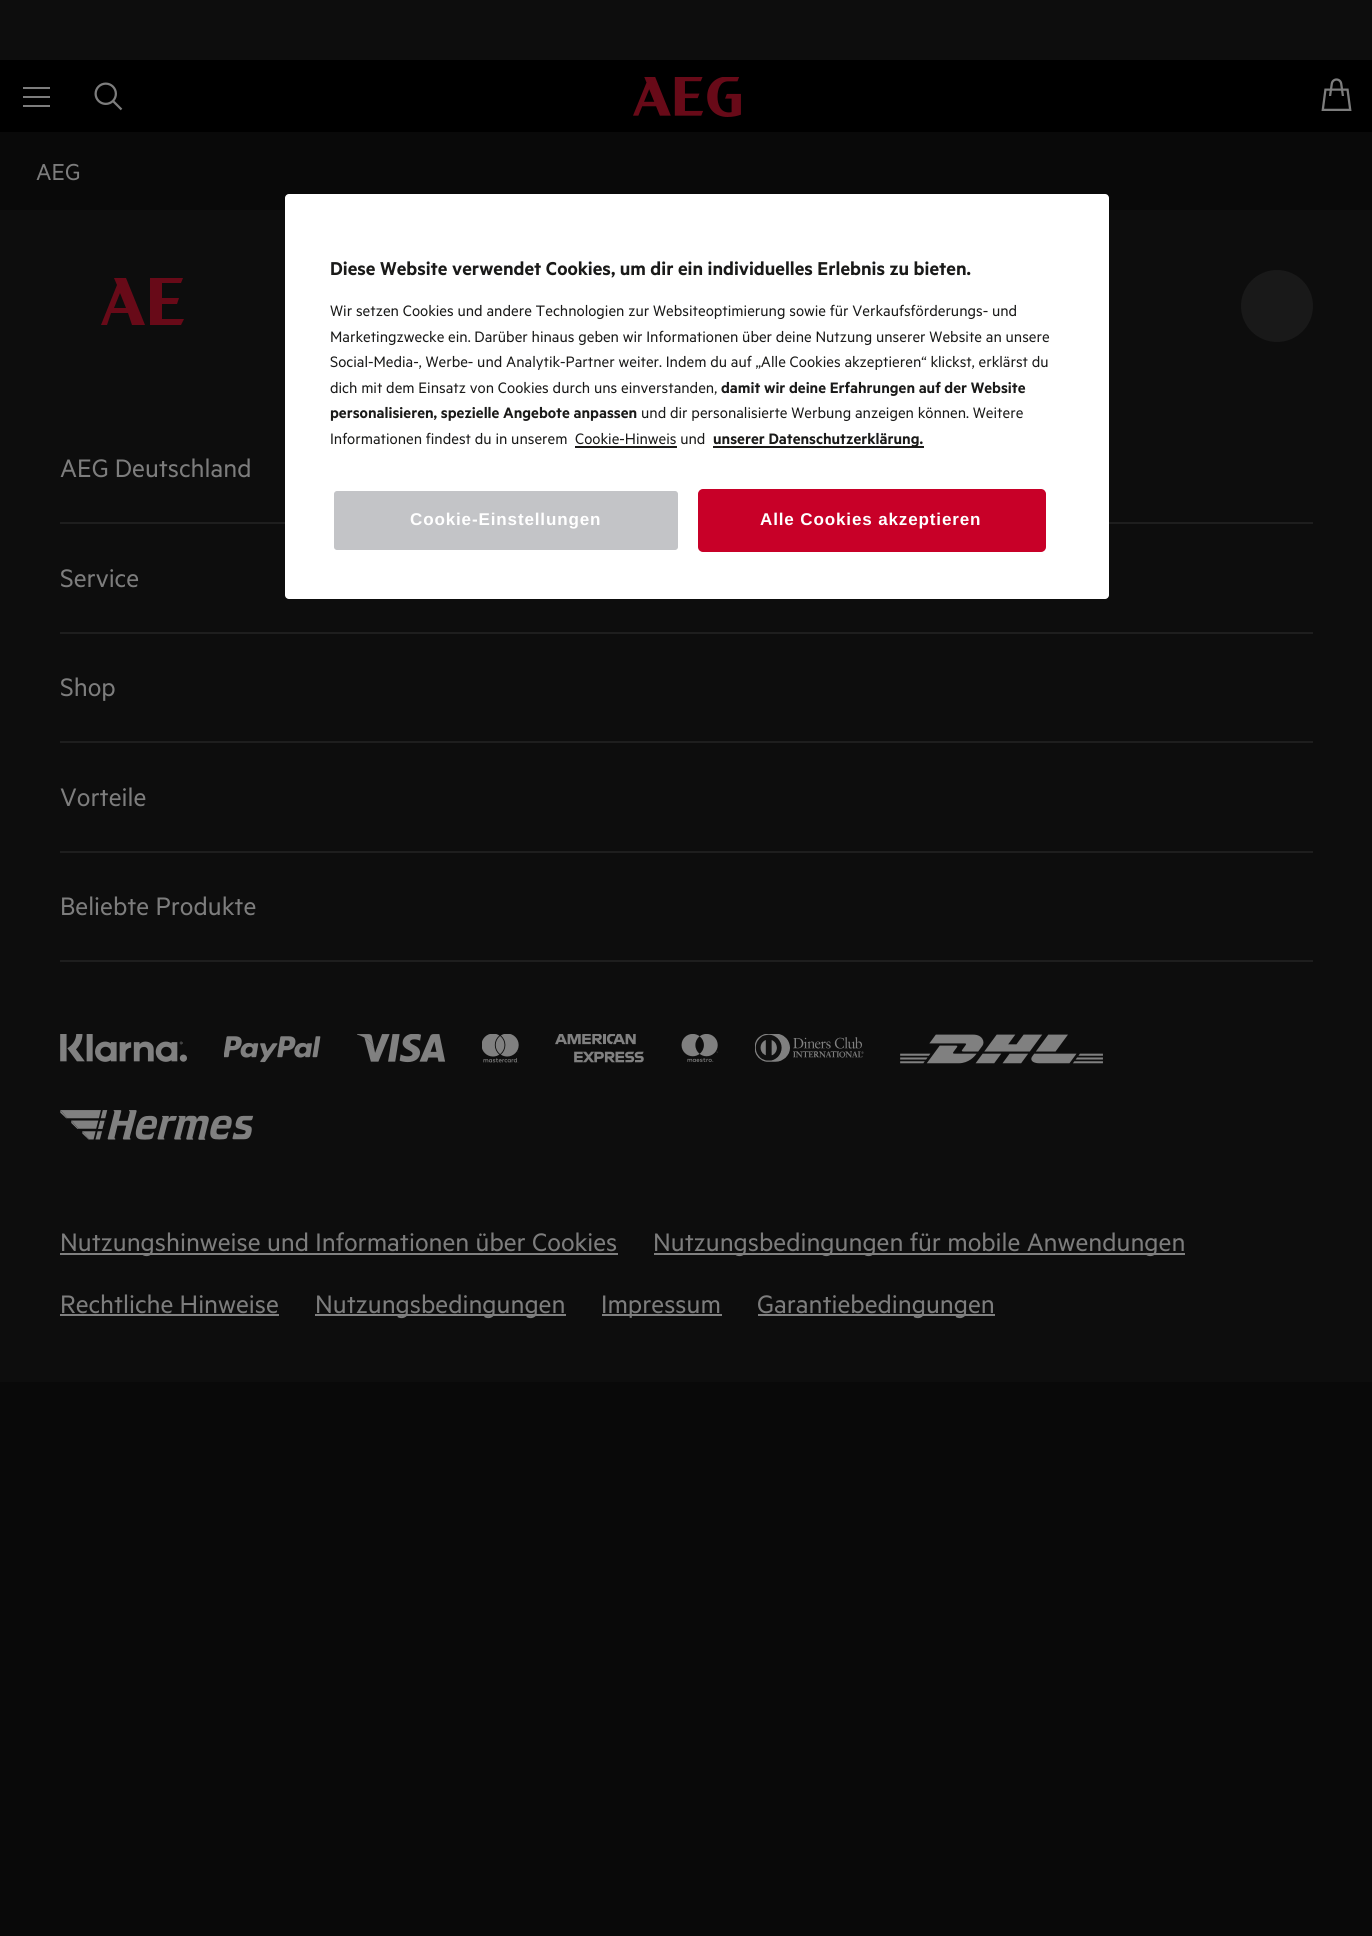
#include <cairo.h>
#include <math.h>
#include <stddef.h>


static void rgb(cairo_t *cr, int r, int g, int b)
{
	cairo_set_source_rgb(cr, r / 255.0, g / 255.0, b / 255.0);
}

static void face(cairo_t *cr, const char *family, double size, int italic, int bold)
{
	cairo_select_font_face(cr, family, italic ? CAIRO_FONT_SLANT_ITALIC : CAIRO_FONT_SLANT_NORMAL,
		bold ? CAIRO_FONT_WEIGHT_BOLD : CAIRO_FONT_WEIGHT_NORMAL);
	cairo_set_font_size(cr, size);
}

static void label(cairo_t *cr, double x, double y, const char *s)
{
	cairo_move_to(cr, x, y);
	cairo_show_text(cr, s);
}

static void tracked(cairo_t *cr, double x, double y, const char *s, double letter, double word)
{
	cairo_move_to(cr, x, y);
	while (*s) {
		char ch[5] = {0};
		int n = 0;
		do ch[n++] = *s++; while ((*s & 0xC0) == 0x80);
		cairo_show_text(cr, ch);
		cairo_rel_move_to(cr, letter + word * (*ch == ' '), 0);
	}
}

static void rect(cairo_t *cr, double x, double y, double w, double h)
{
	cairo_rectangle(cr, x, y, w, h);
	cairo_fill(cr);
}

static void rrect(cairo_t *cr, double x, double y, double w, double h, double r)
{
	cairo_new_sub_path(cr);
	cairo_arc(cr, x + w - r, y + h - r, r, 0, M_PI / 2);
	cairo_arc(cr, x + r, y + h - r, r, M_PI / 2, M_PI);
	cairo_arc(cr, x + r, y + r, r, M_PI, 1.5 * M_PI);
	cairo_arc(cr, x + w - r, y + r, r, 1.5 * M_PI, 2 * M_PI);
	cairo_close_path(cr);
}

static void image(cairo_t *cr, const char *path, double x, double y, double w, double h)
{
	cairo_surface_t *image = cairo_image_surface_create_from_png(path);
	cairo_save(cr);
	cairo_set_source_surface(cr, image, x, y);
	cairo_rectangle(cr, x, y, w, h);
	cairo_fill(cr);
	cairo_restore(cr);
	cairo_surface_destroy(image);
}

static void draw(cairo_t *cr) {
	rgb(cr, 9, 9, 9);
	cairo_paint(cr);
	rgb(cr, 13, 13, 13);
	rect(cr, 0, 0, 1372, 60);
	rgb(cr, 0, 0, 0);
	rect(cr, 0, 60, 1372, 72);
	rgb(cr, 125, 125, 125);
	rect(cr, 23, 96, 27, 2);
	rect(cr, 23, 87, 27, 2);
	rect(cr, 23, 105, 27, 2);
	image(cr, "image0.png", 94, 82, 29, 29);
	image(cr, "image1.png", 633, 77, 108, 40);
	image(cr, "image2.png", 1321, 78, 31, 33);
	face(cr, "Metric", 26, 0, 0);
	label(cr, 36, 180, "AEG");
	rgb(cr, 13, 13, 13);
	rect(cr, 0, 210, 1372, 1172);
	rgb(cr, 104, 10, 24);
	cairo_new_path(cr);
	cairo_move_to(cr, 114, 278);
	cairo_line_to(cr, 117, 285);
	cairo_line_to(cr, 101, 325);
	cairo_line_to(cr, 107, 325);
	cairo_line_to(cr, 111, 313);
	cairo_line_to(cr, 128, 313);
	cairo_line_to(cr, 132, 325);
	cairo_line_to(cr, 145, 325);
	cairo_line_to(cr, 126, 278);
	cairo_close_path(cr);
	cairo_move_to(cr, 114, 308);
	cairo_line_to(cr, 120, 293);
	cairo_line_to(cr, 126, 308);
	cairo_close_path(cr);
	cairo_fill(cr);
	cairo_new_path(cr);
	cairo_move_to(cr, 162, 304);
	cairo_line_to(cr, 177, 304);
	cairo_line_to(cr, 179, 298);
	cairo_line_to(cr, 162, 298);
	cairo_line_to(cr, 162, 283);
	cairo_line_to(cr, 181, 283);
	cairo_line_to(cr, 183, 278);
	cairo_line_to(cr, 150, 278);
	cairo_line_to(cr, 150, 325);
	cairo_line_to(cr, 181, 325);
	cairo_line_to(cr, 184, 319);
	cairo_line_to(cr, 162, 319);
	cairo_close_path(cr);
	cairo_fill(cr);
	rgb(cr, 25, 25, 25);
	cairo_arc(cr, 1277, 306, 36, 0, 2 * M_PI);
	cairo_fill(cr);
	rgb(cr, 30, 30, 30);
	rect(cr, 60, 522, 1253, 2);
	face(cr, "Metric", 28.5, 0, 0);
	rgb(cr, 125, 125, 125);
	label(cr, 60, 477, "AEG Deutschland");
	rgb(cr, 30, 30, 30);
	rect(cr, 60, 632, 1253, 2);
	rgb(cr, 125, 125, 125);
	label(cr, 60, 587, "Service");
	rgb(cr, 30, 30, 30);
	rect(cr, 60, 741, 1253, 2);
	rgb(cr, 125, 125, 125);
	label(cr, 60, 696, "Shop");
	rgb(cr, 30, 30, 30);
	rect(cr, 60, 851, 1253, 2);
	rgb(cr, 125, 125, 125);
	label(cr, 60, 806, "Vorteile");
	rgb(cr, 30, 30, 30);
	rect(cr, 60, 960, 1253, 2);
	rgb(cr, 125, 125, 125);
	label(cr, 60, 915, "Beliebte Produkte");
	image(cr, "image3.png", 60, 1034, 127, 28);
	image(cr, "image4.png", 224, 1036, 97, 27);
	image(cr, "image5.png", 357, 1034, 89, 29);
	image(cr, "image6.png", 482, 1034, 37, 29);
	image(cr, "image7.png", 555, 1034, 89, 29);
	image(cr, "image8.png", 681, 1034, 37, 28);
	image(cr, "image9.png", 755, 1034, 109, 28);
	image(cr, "image10.png", 900, 1034, 203, 30);
	image(cr, "image11.png", 60, 1110, 194, 30);
	rgb(cr, 128, 128, 128);
	rect(cr, 60, 1253, 558, 2);
	rgb(cr, 125, 125, 125);
	label(cr, 60, 1251, "Nutzungshinweise und Informationen über Cookies");
	rgb(cr, 128, 128, 128);
	rect(cr, 654, 1253, 531, 2);
	rgb(cr, 125, 125, 125);
	label(cr, 653, 1251, "Nutzungsbedingungen für mobile Anwendungen");
	label(cr, 60, 1313, "Rechtliche Hinweise");
	rgb(cr, 128, 128, 128);
	rect(cr, 60, 1314, 219, 2);
	rect(cr, 315, 1314, 251, 2);
	rgb(cr, 125, 125, 125);
	label(cr, 315, 1313, "Nutzungsbedingungen");
	rgb(cr, 128, 128, 128);
	rect(cr, 602, 1314, 120, 2);
	rgb(cr, 125, 125, 125);
	label(cr, 601, 1313, "Impressum");
	rgb(cr, 128, 128, 128);
	rect(cr, 758, 1314, 237, 2);
	rgb(cr, 125, 125, 125);
	label(cr, 757, 1313, "Garantiebedingungen");
	rgb(cr, 255, 255, 255);
	rrect(cr, 285, 194, 824, 405, 4);
	cairo_fill(cr);
	face(cr, "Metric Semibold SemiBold", 21, 0, 0);
	rgb(cr, 26, 26, 25);
	label(cr, 330, 275, "Diese Website verwendet Cookies, um dir ein individuelles Erlebnis zu bieten.");
	face(cr, "Metric", 17.05, 0, 0);
	label(cr, 330, 316, "Wir setzen Cookies und andere Technologien zur Websiteoptimierung sowie für Verkaufsförderungs- und");
	label(cr, 330, 342, "Marketingzwecke ein. Darüber hinaus geben wir Informationen über deine Nutzung unserer Website an unsere");
	label(cr, 330, 367, "Social-Media-, Werbe- und Analytik-Partner weiter. Indem du auf „Alle Cookies akzeptieren“ klickst, erklärst du");
	label(cr, 330, 393, "dich mit dem Einsatz von Cookies durch uns einverstanden,");
	face(cr, "Metric Semibold SemiBold", 17.05, 0, 0);
	label(cr, 721, 393, "damit wir deine Erfahrungen auf der Website");
	label(cr, 330, 418, "personalisieren, spezielle Angebote anpassen");
	face(cr, "Metric", 17.05, 0, 0);
	label(cr, 641, 418, "und dir personalisierte Werbung anzeigen können. Weitere");
	label(cr, 330, 444, "Informationen findest du in unserem");
	label(cr, 575, 444, "Cookie-Hinweis und");
	rect(cr, 575, 446, 102, 2);
	rect(cr, 713, 446, 211, 2);
	face(cr, "Metric Semibold SemiBold", 17.05, 0, 0);
	label(cr, 713, 444, "unserer Datenschutzerklärung.");
	rgb(cr, 195, 196, 199);
	rrect(cr, 333, 490, 346, 61, 4);
	cairo_fill_preserve(cr);
	rgb(cr, 255, 255, 255);
	cairo_stroke(cr);
	face(cr, "Liberation Sans", 17.05, 0, 1);
	tracked(cr, 410, 525, "Cookie-Einstellungen", 0.85, 0);
	rgb(cr, 200, 0, 40);
	rrect(cr, 699, 490, 346, 61, 4);
	cairo_fill_preserve(cr);
	cairo_stroke(cr);
	rgb(cr, 255, 255, 255);
	tracked(cr, 760, 525, "Alle Cookies akzeptieren", 0.85, 0);
}

int main(void) {
	cairo_surface_t *surface = cairo_image_surface_create(CAIRO_FORMAT_RGB24, 1372, 1936);
	cairo_t *cr = cairo_create(surface);
	cairo_font_options_t *options = cairo_font_options_create();
	cairo_font_options_set_hint_metrics(options, CAIRO_HINT_METRICS_OFF);
	cairo_font_options_set_hint_style(options, CAIRO_HINT_STYLE_NONE);
	cairo_set_font_options(cr, options);
	cairo_set_miter_limit(cr, 4);
	draw(cr);
	cairo_surface_write_to_png(surface, "render.png");
	cairo_font_options_destroy(options);
	cairo_destroy(cr);
	cairo_surface_destroy(surface);
	return 0;
}
